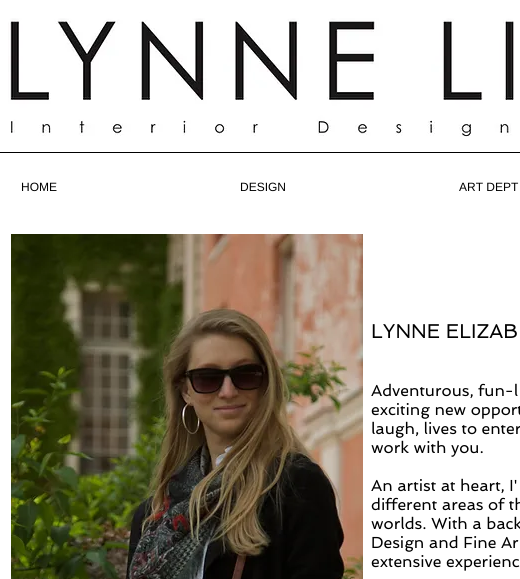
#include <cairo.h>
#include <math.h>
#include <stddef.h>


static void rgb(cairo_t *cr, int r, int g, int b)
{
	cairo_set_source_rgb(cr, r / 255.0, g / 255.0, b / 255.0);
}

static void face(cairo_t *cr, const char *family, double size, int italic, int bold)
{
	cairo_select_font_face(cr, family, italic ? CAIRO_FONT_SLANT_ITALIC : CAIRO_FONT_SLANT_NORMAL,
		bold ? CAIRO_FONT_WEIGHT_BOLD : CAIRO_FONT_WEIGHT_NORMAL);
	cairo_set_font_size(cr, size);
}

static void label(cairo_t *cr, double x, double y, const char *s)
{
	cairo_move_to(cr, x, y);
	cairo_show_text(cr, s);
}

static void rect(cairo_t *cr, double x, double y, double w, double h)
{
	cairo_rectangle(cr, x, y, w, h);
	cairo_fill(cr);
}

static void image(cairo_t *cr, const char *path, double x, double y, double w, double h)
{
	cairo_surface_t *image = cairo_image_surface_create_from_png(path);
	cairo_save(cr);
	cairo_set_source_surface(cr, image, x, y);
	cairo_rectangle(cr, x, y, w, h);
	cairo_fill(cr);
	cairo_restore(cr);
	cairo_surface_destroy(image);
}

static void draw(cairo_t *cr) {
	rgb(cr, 255, 255, 255);
	cairo_paint(cr);
	image(cr, "image0.png", 8, 18, 506, 119);
	rgb(cr, 0, 0, 0);
	rect(cr, 0, 152, 520, 1);
	face(cr, "Liberation Sans", 12, 0, 0);
	label(cr, 21, 191, "HOME");
	label(cr, 240, 191, "DESIGN");
	label(cr, 459, 191, "ART DEPT");
	image(cr, "image1.png", 11, 234, 352, 345);
	face(cr, "Spinnaker", 20, 0, 0);
	label(cr, 371, 338, "LYNNE ELIZAB");
	face(cr, "Spinnaker", 16, 0, 0);
	label(cr, 371, 396, "Adventurous, fun-l");
	label(cr, 371, 415, "exciting new opport");
	label(cr, 371, 434, "laugh, lives to enter");
	label(cr, 371, 453, "work with you.");
	label(cr, 371, 491, "An artist at heart, I'");
	label(cr, 371, 510, "different areas of th");
	label(cr, 371, 529, "worlds. With a back");
	label(cr, 371, 548, "Design and Fine Ar");
	label(cr, 371, 567, "extensive experienc");
}

int main(void) {
	cairo_surface_t *surface = cairo_image_surface_create(CAIRO_FORMAT_RGB24, 520, 579);
	cairo_t *cr = cairo_create(surface);
	cairo_font_options_t *options = cairo_font_options_create();
	cairo_font_options_set_hint_metrics(options, CAIRO_HINT_METRICS_OFF);
	cairo_font_options_set_hint_style(options, CAIRO_HINT_STYLE_NONE);
	cairo_set_font_options(cr, options);
	cairo_set_miter_limit(cr, 4);
	draw(cr);
	cairo_surface_write_to_png(surface, "render.png");
	cairo_font_options_destroy(options);
	cairo_destroy(cr);
	cairo_surface_destroy(surface);
	return 0;
}
